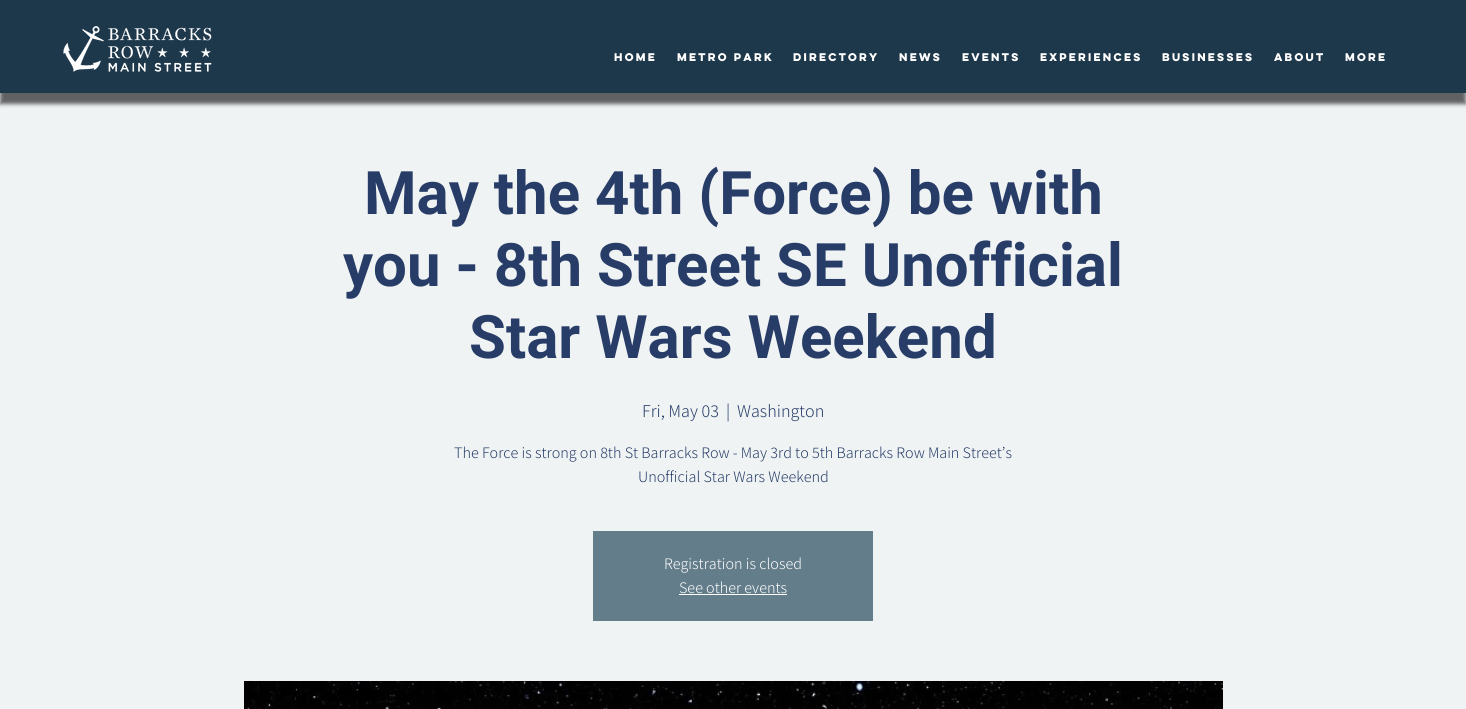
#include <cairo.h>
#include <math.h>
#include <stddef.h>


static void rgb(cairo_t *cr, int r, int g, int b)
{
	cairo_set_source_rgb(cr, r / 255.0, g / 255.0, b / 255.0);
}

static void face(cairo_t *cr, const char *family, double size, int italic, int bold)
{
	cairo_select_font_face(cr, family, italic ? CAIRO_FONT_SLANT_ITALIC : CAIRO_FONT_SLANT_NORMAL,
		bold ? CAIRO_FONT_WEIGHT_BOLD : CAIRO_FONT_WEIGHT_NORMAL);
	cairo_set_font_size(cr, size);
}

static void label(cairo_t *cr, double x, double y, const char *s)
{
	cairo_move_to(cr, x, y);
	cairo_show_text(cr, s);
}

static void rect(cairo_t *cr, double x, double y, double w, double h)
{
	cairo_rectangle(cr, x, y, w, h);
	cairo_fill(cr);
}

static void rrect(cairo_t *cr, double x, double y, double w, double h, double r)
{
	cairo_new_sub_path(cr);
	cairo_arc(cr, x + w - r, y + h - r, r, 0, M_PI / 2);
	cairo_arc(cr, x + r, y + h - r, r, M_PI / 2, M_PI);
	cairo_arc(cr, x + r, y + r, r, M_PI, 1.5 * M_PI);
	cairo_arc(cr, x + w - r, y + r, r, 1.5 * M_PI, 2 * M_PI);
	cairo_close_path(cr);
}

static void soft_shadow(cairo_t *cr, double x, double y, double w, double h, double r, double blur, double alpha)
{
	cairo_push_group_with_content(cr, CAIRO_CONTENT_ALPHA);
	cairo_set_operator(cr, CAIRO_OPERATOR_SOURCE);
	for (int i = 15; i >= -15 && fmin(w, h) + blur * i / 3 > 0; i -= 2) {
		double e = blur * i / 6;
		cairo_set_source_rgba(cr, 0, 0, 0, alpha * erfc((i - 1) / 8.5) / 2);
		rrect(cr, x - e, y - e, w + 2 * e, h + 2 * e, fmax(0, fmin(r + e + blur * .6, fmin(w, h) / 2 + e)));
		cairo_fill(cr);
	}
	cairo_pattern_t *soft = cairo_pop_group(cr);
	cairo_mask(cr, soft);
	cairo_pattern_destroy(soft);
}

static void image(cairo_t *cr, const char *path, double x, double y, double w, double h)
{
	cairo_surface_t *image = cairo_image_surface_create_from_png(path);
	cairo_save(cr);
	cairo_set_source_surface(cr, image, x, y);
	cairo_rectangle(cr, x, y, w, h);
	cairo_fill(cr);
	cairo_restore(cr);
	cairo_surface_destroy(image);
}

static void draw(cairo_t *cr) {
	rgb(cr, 240, 243, 244);
	cairo_paint(cr);
	rgb(cr, 0, 0, 0);
	soft_shadow(cr, 0, 11, 1466, 93, 0, 2, 0.6);
	rgb(cr, 29, 55, 75);
	rect(cr, 0, 0, 1466, 93);
	image(cr, "image0.png", 63, 26, 149, 46);
	face(cr, "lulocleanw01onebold", 10, 0, 1);
	rgb(cr, 255, 255, 255);
	label(cr, 614, 61, "Home");
	label(cr, 677, 61, "Metro Park");
	label(cr, 793, 61, "Directory");
	label(cr, 899, 61, "News");
	label(cr, 962, 61, "Events");
	label(cr, 1040, 61, "EXPERIENCES");
	label(cr, 1162, 61, "Businesses");
	label(cr, 1274, 61, "About");
	label(cr, 1345, 61, "More");
	face(cr, "Roboto", 60, 0, 1);
	rgb(cr, 39, 61, 104);
	label(cr, 364, 214, "May the 4th (Force) be with");
	label(cr, 343, 286, "you - 8th Street SE Unofficial");
	label(cr, 469, 358, "Star Wars Weekend");
	face(cr, "Assistant Light", 18, 0, 0);
	label(cr, 642, 417, "Fri, May 03");
	label(cr, 726, 417, "|");
	label(cr, 737, 417, "Washington");
	face(cr, "Assistant Light", 16, 0, 0);
	label(cr, 454, 458, "The Force is strong on 8th St Barracks Row - May 3rd to 5th Barracks Row Main Street’s");
	label(cr, 638, 482, "Unofficial Star Wars Weekend");
	rgb(cr, 99, 125, 138);
	rect(cr, 593, 531, 280, 90);
	rgb(cr, 255, 255, 255);
	label(cr, 664, 569, "Registration is closed");
	label(cr, 679, 593, "See other events");
	rect(cr, 679, 594, 108, 1);
	image(cr, "image1.png", 244, 681, 979, 28);
}

int main(void) {
	cairo_surface_t *surface = cairo_image_surface_create(CAIRO_FORMAT_RGB24, 1466, 709);
	cairo_t *cr = cairo_create(surface);
	cairo_font_options_t *options = cairo_font_options_create();
	cairo_font_options_set_hint_metrics(options, CAIRO_HINT_METRICS_OFF);
	cairo_font_options_set_hint_style(options, CAIRO_HINT_STYLE_NONE);
	cairo_set_font_options(cr, options);
	cairo_set_miter_limit(cr, 4);
	draw(cr);
	cairo_surface_write_to_png(surface, "render.png");
	cairo_font_options_destroy(options);
	cairo_destroy(cr);
	cairo_surface_destroy(surface);
	return 0;
}
